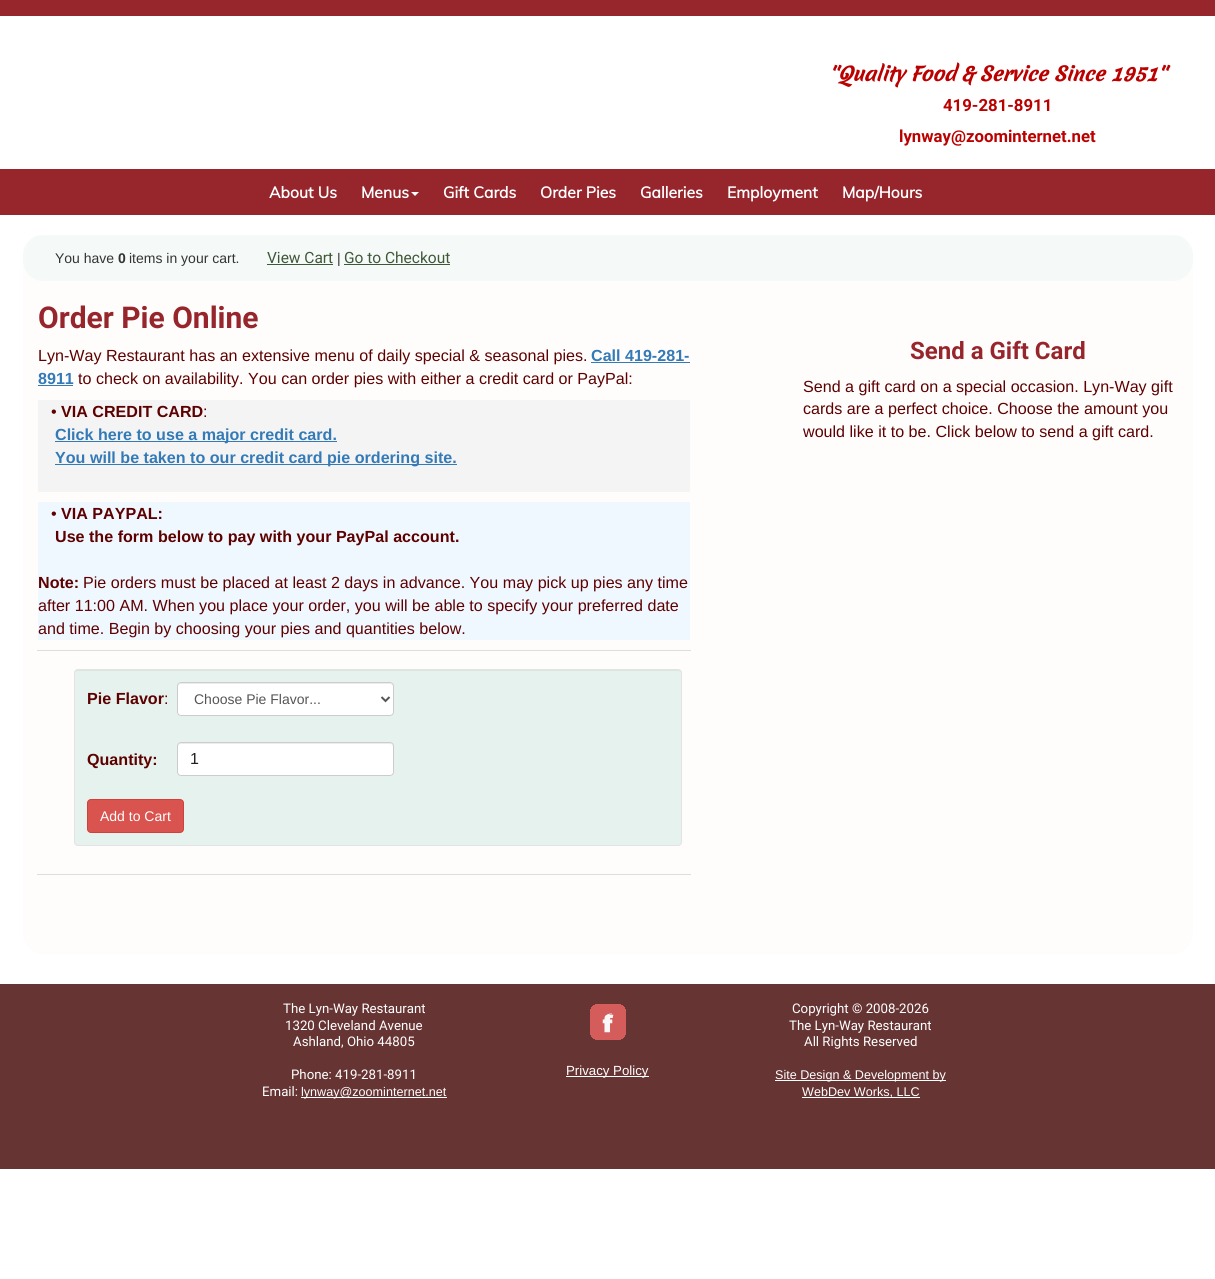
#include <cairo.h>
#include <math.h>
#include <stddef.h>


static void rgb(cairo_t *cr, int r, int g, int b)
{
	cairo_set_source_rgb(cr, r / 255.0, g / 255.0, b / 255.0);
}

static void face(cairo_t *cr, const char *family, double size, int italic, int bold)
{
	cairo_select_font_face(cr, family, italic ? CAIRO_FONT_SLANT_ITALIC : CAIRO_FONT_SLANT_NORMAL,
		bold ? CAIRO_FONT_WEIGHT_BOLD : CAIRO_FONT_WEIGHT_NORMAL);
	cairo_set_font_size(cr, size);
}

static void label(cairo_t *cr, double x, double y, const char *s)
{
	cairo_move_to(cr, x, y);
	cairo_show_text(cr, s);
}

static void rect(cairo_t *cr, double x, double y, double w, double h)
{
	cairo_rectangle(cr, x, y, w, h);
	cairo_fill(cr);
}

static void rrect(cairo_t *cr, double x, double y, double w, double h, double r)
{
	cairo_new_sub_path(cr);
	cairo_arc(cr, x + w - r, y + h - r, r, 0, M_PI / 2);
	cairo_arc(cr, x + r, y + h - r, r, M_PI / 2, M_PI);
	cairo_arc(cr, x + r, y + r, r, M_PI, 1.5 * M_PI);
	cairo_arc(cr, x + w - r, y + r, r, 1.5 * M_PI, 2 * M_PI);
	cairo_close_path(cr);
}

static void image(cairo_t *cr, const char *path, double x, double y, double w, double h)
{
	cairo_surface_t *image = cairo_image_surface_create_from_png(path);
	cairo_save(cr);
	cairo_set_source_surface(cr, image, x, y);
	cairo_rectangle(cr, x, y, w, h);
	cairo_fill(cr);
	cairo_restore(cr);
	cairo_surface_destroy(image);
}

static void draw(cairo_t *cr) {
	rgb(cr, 255, 255, 255);
	cairo_paint(cr);
	rgb(cr, 151, 37, 44);
	rect(cr, 0, 0, 1215, 16);
	face(cr, "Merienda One", 18.9, 1, 1);
	rgb(cr, 187, 0, 0);
	label(cr, 829, 81, "''Quality Food & Service Since 1951''");
	face(cr, "Roboto", 16.75, 0, 1);
	label(cr, 943, 111, "419-281-8911");
	label(cr, 899, 142, "lynway@zoominternet.net");
	rgb(cr, 151, 37, 44);
	rect(cr, 0, 169, 1215, 46);
	face(cr, "Muli", 15.75, 0, 1);
	rgb(cr, 255, 255, 255);
	label(cr, 269, 198, "About Us");
	label(cr, 361, 198, "Menus");
	cairo_new_path(cr);
	cairo_move_to(cr, 411, 192);
	cairo_line_to(cr, 419, 192);
	cairo_line_to(cr, 415, 196);
	cairo_close_path(cr);
	cairo_fill(cr);
	label(cr, 443, 198, "Gift Cards");
	label(cr, 540, 198, "Order Pies");
	label(cr, 640, 198, "Galleries");
	label(cr, 727, 198, "Employment");
	label(cr, 842, 198, "Map/Hours");
	rgb(cr, 255, 253, 252);
	rrect(cr, 23, 235, 1170, 719, 20);
	cairo_fill(cr);
	rgb(cr, 245, 250, 248);
	rrect(cr, 23, 235, 1170, 46, 20);
	cairo_fill(cr);
	face(cr, "Liberation Sans", 14, 0, 0);
	rgb(cr, 51, 51, 51);
	label(cr, 55, 263, "You have");
	face(cr, "Liberation Sans", 14, 0, 1);
	label(cr, 118, 263, "0");
	face(cr, "Liberation Sans", 14, 0, 0);
	label(cr, 129, 263, "items in your cart.");
	face(cr, "Roboto", 15.5, 0, 0);
	rgb(cr, 63, 88, 56);
	label(cr, 267, 263, "View Cart");
	rect(cr, 267, 264, 66, 1);
	face(cr, "Liberation Sans", 14, 0, 0);
	rgb(cr, 51, 51, 51);
	label(cr, 337, 263, "|");
	face(cr, "Roboto", 15.5, 0, 0);
	rgb(cr, 63, 88, 56);
	label(cr, 344, 263, "Go to Checkout");
	rect(cr, 344, 264, 106, 1);
	face(cr, "Roboto", 30, 0, 1);
	rgb(cr, 151, 37, 44);
	label(cr, 38, 328, "Order Pie Online");
	face(cr, "Liberation Sans", 16.1, 0, 0);
	rgb(cr, 93, 0, 0);
	label(cr, 38, 361, "Lyn-Way Restaurant has an extensive menu of daily special & seasonal pies.");
	face(cr, "Liberation Sans", 16.1, 0, 1);
	rgb(cr, 51, 122, 183);
	label(cr, 591, 361, "Call 419-281-");
	rect(cr, 591, 362, 99, 1);
	label(cr, 38, 384, "8911");
	rect(cr, 38, 385, 35, 1);
	face(cr, "Liberation Sans", 16.1, 0, 0);
	rgb(cr, 93, 0, 0);
	label(cr, 78, 384, "to check on availability. You can order pies with either a credit card or PayPal:");
	rgb(cr, 244, 244, 244);
	rect(cr, 38, 400, 652, 92);
	rgb(cr, 93, 0, 0);
	label(cr, 51, 417, "•");
	face(cr, "Liberation Sans", 16.1, 0, 1);
	label(cr, 61, 417, "VIA CREDIT CARD");
	face(cr, "Liberation Sans", 16.1, 0, 0);
	label(cr, 203, 417, ":");
	rgb(cr, 51, 122, 183);
	rect(cr, 55, 441, 282, 1);
	face(cr, "Liberation Sans", 16.1, 0, 1);
	label(cr, 55, 440, "Click here to use a major credit card.");
	rect(cr, 55, 464, 402, 1);
	label(cr, 55, 463, "You will be taken to our credit card pie ordering site.");
	rgb(cr, 240, 248, 255);
	rect(cr, 38, 502, 652, 138);
	face(cr, "Liberation Sans", 16.1, 0, 0);
	rgb(cr, 93, 0, 0);
	label(cr, 51, 519, "•");
	face(cr, "Liberation Sans", 16.1, 0, 1);
	label(cr, 61, 519, "VIA PAYPAL:");
	label(cr, 55, 542, "Use the form below to pay with your PayPal account.");
	label(cr, 38, 588, "Note:");
	face(cr, "Liberation Sans", 16.1, 0, 0);
	label(cr, 83, 588, "Pie orders must be placed at least 2 days in advance. You may pick up pies any time");
	label(cr, 38, 611, "after 11:00 AM. When you place your order, you will be able to specify your preferred date");
	label(cr, 38, 634, "and time. Begin by choosing your pies and quantities below.");
	rgb(cr, 221, 221, 221);
	rect(cr, 37, 650, 654, 1);
	rgb(cr, 230, 242, 237);
	rrect(cr, 74, 669, 608, 177, 4);
	cairo_fill(cr);
	rgb(cr, 219, 230, 225);
	cairo_new_path(cr);
	cairo_move_to(cr, 78, 671);
	cairo_line_to(cr, 678, 671);
	cairo_curve_to(cr, 680, 671, 681, 672, 681, 674);
	cairo_line_to(cr, 681, 673);
	cairo_curve_to(cr, 681, 671, 680, 670, 678, 670);
	cairo_line_to(cr, 78, 670);
	cairo_curve_to(cr, 76, 670, 75, 671, 75, 673);
	cairo_line_to(cr, 75, 674);
	cairo_curve_to(cr, 75, 672, 76, 671, 78, 671);
	cairo_close_path(cr);
	cairo_fill(cr);
	rrect(cr, 74.5, 669.5, 607, 176, 3.5);
	rgb(cr, 227, 227, 227);
	cairo_set_line_width(cr, 1);
	cairo_stroke(cr);
	face(cr, "Liberation Sans", 16.1, 0, 1);
	rgb(cr, 93, 0, 0);
	label(cr, 87, 704, "Pie Flavor");
	face(cr, "Liberation Sans", 16.1, 0, 0);
	label(cr, 164, 704, ":");
	rgb(cr, 255, 255, 255);
	rrect(cr, 177, 682, 217, 34, 4);
	cairo_fill(cr);
	rgb(cr, 236, 236, 236);
	cairo_new_path(cr);
	cairo_move_to(cr, 181, 684);
	cairo_line_to(cr, 390, 684);
	cairo_curve_to(cr, 392, 684, 393, 685, 393, 687);
	cairo_line_to(cr, 393, 686);
	cairo_curve_to(cr, 393, 684, 392, 683, 390, 683);
	cairo_line_to(cr, 181, 683);
	cairo_curve_to(cr, 179, 683, 178, 684, 178, 686);
	cairo_line_to(cr, 178, 687);
	cairo_curve_to(cr, 178, 685, 179, 684, 181, 684);
	cairo_close_path(cr);
	cairo_fill(cr);
	rrect(cr, 177.5, 682.5, 216, 33, 3.5);
	rgb(cr, 204, 204, 204);
	cairo_stroke(cr);
	cairo_new_path(cr);
	cairo_move_to(cr, 381.5, 697);
	cairo_line_to(cr, 385.5, 701);
	cairo_line_to(cr, 389.5, 697);
	rgb(cr, 85, 85, 85);
	cairo_set_line_width(cr, 2);
	cairo_stroke(cr);
	face(cr, "Liberation Sans", 14, 0, 0);
	label(cr, 194, 704, "Choose Pie Flavor...");
	face(cr, "Liberation Sans", 16.1, 0, 1);
	rgb(cr, 93, 0, 0);
	label(cr, 87, 765, "Quantity:");
	rgb(cr, 255, 255, 255);
	rrect(cr, 177, 742, 217, 34, 4);
	cairo_fill(cr);
	rgb(cr, 236, 236, 236);
	cairo_new_path(cr);
	cairo_move_to(cr, 181, 744);
	cairo_line_to(cr, 390, 744);
	cairo_curve_to(cr, 392, 744, 393, 745, 393, 747);
	cairo_line_to(cr, 393, 746);
	cairo_curve_to(cr, 393, 744, 392, 743, 390, 743);
	cairo_line_to(cr, 181, 743);
	cairo_curve_to(cr, 179, 743, 178, 744, 178, 746);
	cairo_line_to(cr, 178, 747);
	cairo_curve_to(cr, 178, 745, 179, 744, 181, 744);
	cairo_close_path(cr);
	cairo_fill(cr);
	rrect(cr, 177.5, 742.5, 216, 33, 3.5);
	rgb(cr, 204, 204, 204);
	cairo_set_line_width(cr, 1);
	cairo_stroke(cr);
	face(cr, "Liberation Sans", 16, 0, 0);
	rgb(cr, 31, 31, 31);
	label(cr, 190, 764, "1");
	rgb(cr, 217, 83, 79);
	rrect(cr, 87.5, 799.5, 96, 33, 3.5);
	cairo_fill_preserve(cr);
	rgb(cr, 212, 63, 58);
	cairo_stroke(cr);
	face(cr, "Liberation Sans", 14, 0, 0);
	rgb(cr, 255, 255, 255);
	label(cr, 100, 821, "Add to Cart");
	rgb(cr, 221, 221, 221);
	rect(cr, 37, 874, 654, 1);
	face(cr, "Roboto", 24, 0, 1);
	rgb(cr, 151, 37, 44);
	label(cr, 910, 359, "Send a Gift Card");
	face(cr, "Liberation Sans", 16.1, 0, 0);
	rgb(cr, 93, 0, 0);
	label(cr, 803, 392, "Send a gift card on a special occasion. Lyn-Way gift");
	label(cr, 803, 414, "cards are a perfect choice. Choose the amount you");
	label(cr, 803, 437, "would like it to be. Click below to send a gift card.");
	rgb(cr, 103, 52, 52);
	rect(cr, 0, 984, 1215, 185);
	face(cr, "Roboto", 13.25, 0, 0);
	rgb(cr, 255, 255, 255);
	label(cr, 283, 1013, "The Lyn-Way Restaurant");
	label(cr, 285, 1030, "1320 Cleveland Avenue");
	label(cr, 293, 1046, "Ashland, Ohio 44805");
	label(cr, 291, 1079, "Phone: 419-281-8911");
	label(cr, 262, 1096, "Email:");
	rect(cr, 301, 1097, 146, 1);
	face(cr, "Liberation Sans", 12.6, 0, 0);
	label(cr, 301, 1096, "lynway@zoominternet.net");
	image(cr, "image0.png", 590, 1004, 36, 36);
	rect(cr, 566, 1076, 83, 1);
	face(cr, "Liberation Sans", 13.25, 0, 0);
	label(cr, 566, 1075, "Privacy Policy");
	face(cr, "Roboto", 13.25, 0, 0);
	label(cr, 792, 1013, "Copyright © 2008-2026");
	label(cr, 789, 1030, "The Lyn-Way Restaurant");
	label(cr, 804, 1046, "All Rights Reserved");
	rect(cr, 775, 1080, 171, 1);
	face(cr, "Liberation Sans", 12.6, 0, 0);
	label(cr, 775, 1079, "Site Design & Development by");
	rect(cr, 802, 1097, 118, 1);
	label(cr, 802, 1096, "WebDev Works, LLC");
}

int main(void) {
	cairo_surface_t *surface = cairo_image_surface_create(CAIRO_FORMAT_RGB24, 1215, 1279);
	cairo_t *cr = cairo_create(surface);
	cairo_font_options_t *options = cairo_font_options_create();
	cairo_font_options_set_hint_metrics(options, CAIRO_HINT_METRICS_OFF);
	cairo_font_options_set_hint_style(options, CAIRO_HINT_STYLE_NONE);
	cairo_set_font_options(cr, options);
	cairo_set_miter_limit(cr, 4);
	draw(cr);
	cairo_surface_write_to_png(surface, "render.png");
	cairo_font_options_destroy(options);
	cairo_destroy(cr);
	cairo_surface_destroy(surface);
	return 0;
}
